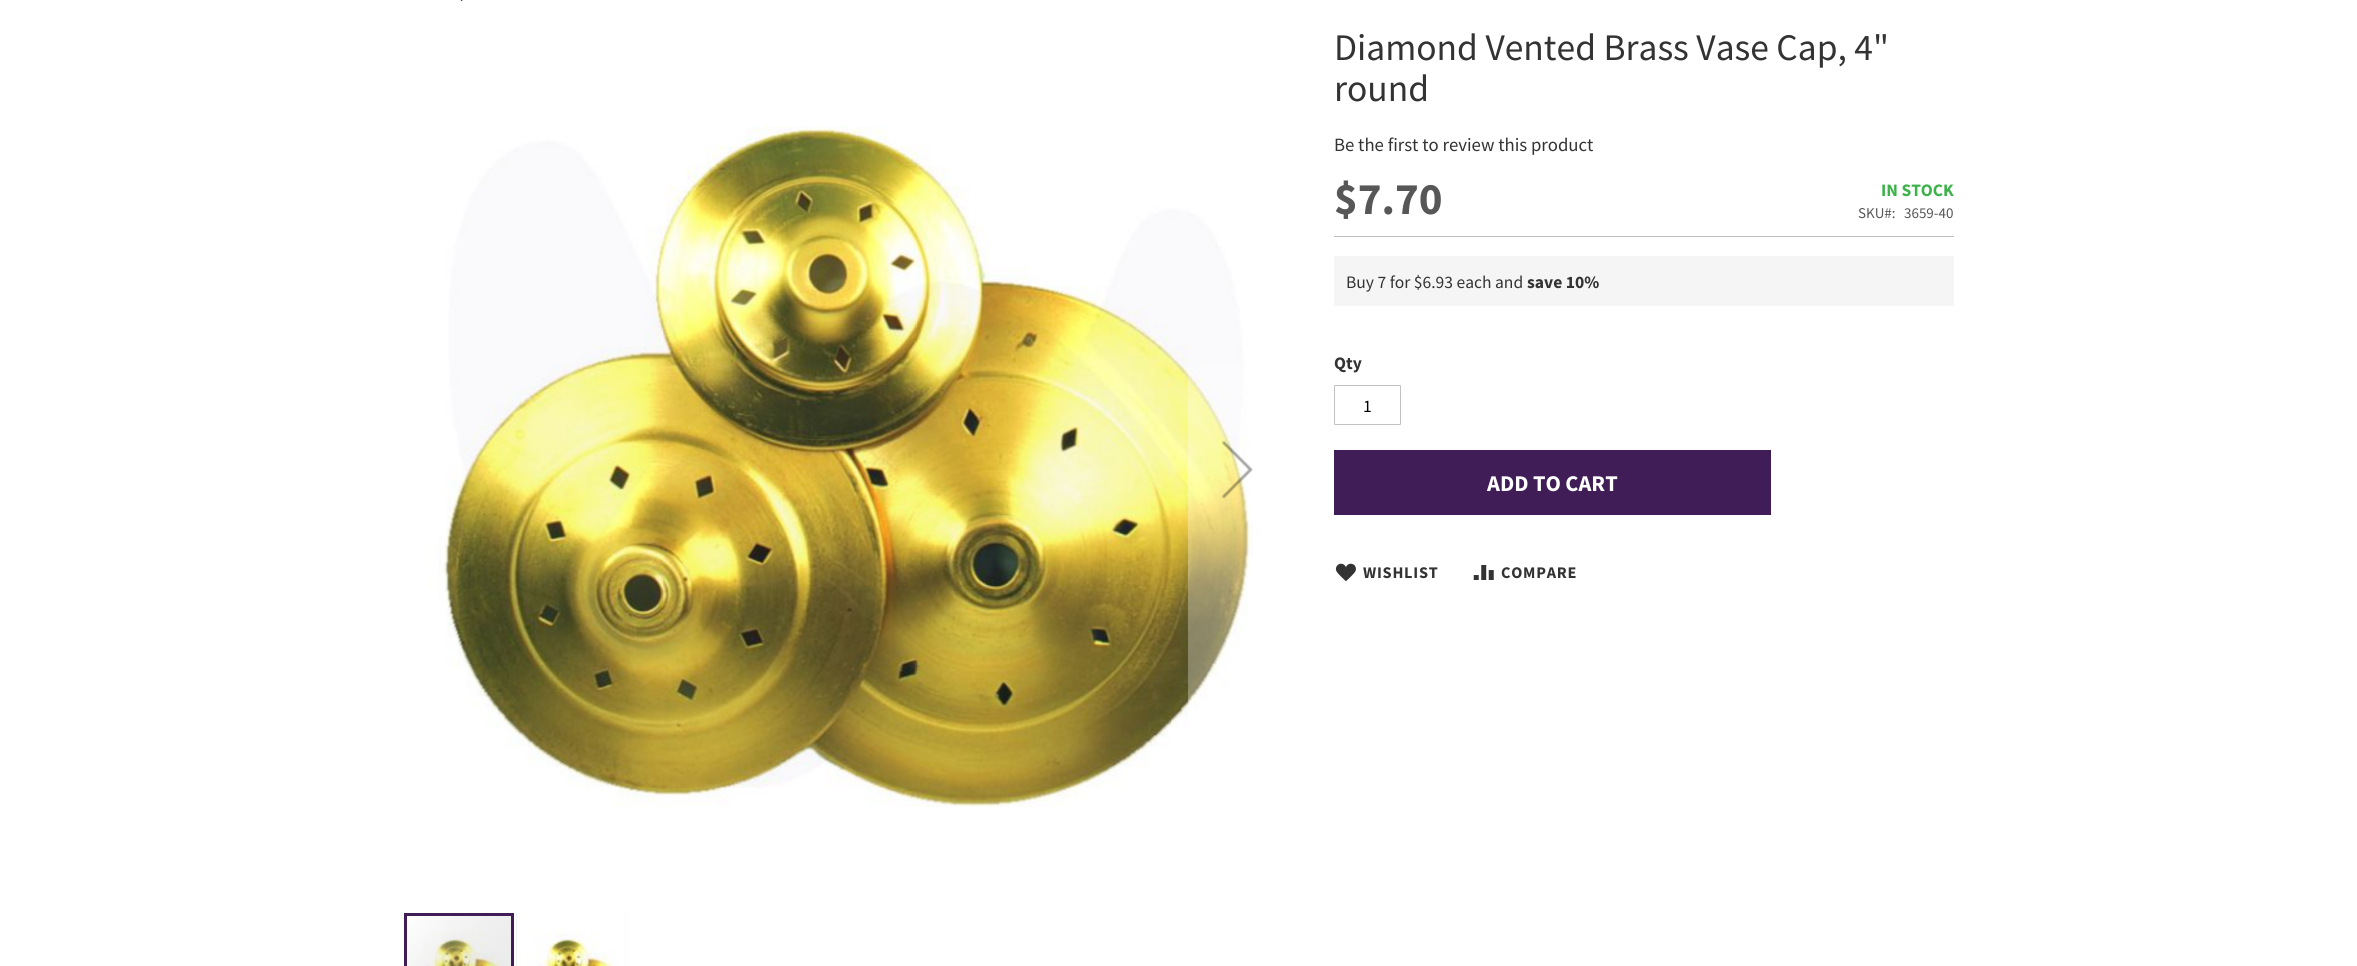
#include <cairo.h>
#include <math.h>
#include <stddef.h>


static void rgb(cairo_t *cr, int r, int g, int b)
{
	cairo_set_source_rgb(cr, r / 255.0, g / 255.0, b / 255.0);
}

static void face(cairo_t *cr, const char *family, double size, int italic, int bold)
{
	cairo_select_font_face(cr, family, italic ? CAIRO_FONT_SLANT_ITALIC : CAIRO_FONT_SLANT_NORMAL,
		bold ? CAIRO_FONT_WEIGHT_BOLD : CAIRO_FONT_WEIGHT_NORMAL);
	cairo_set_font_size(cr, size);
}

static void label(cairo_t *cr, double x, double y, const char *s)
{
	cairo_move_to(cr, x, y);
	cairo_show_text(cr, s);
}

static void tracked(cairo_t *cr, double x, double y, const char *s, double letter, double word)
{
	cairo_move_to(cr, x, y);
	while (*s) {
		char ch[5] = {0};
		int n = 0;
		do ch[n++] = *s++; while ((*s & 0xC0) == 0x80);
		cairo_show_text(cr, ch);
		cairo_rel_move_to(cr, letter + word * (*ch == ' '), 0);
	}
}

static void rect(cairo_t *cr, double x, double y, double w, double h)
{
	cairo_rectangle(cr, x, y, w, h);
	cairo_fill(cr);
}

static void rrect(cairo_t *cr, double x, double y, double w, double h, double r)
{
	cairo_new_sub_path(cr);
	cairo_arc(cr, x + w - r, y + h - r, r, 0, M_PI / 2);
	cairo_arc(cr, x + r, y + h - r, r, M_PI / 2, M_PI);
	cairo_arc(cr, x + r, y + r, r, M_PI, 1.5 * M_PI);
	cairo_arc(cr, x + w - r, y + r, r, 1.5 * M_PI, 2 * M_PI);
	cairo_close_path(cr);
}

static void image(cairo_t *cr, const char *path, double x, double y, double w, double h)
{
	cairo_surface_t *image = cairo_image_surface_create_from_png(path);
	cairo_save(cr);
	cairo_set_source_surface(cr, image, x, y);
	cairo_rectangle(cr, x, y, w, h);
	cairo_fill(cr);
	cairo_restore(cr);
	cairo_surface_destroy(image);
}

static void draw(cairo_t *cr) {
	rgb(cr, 255, 255, 255);
	cairo_paint(cr);
	image(cr, "image0.png", 460, 0, 3, 2);
	image(cr, "image1.png", 428, 126, 825, 681);
	cairo_set_source_rgba(cr, 1, 1, 1, 0.3);
	rect(cr, 1188, 366, 62, 340);
	image(cr, "image2.png", 1222, 440, 31, 59);
	image(cr, "image4.png", 407, 916, 104, 50);
	cairo_rectangle(cr, 405.5, 914.5, 107, 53);
	rgb(cr, 64, 29, 87);
	cairo_set_line_width(cr, 3);
	cairo_stroke(cr);
	rgb(cr, 235, 235, 235);
	rect(cr, 516, 913, 110, 53);
	image(cr, "image3.png", 516, 913, 110, 53);
	face(cr, "Source Sans Pro", 37.5, 0, 0);
	rgb(cr, 51, 51, 51);
	label(cr, 1334, 60, "Diamond Vented Brass Vase Cap, 4\"");
	label(cr, 1334, 101, "round");
	face(cr, "Source Sans Pro", 18.75, 0, 0);
	label(cr, 1334, 151, "Be the first to review this product");
	rgb(cr, 193, 193, 193);
	rect(cr, 1334, 236, 620, 1);
	face(cr, "Source Sans Pro", 45, 0, 1);
	rgb(cr, 87, 87, 87);
	label(cr, 1334, 214, "$7.70");
	face(cr, "Source Sans Pro", 17.5, 0, 1);
	rgb(cr, 61, 178, 75);
	label(cr, 1881, 196, "IN STOCK");
	face(cr, "Source Sans Pro", 15, 0, 0);
	rgb(cr, 87, 87, 87);
	label(cr, 1858, 218, "SKU#:");
	label(cr, 1904, 218, "3659-40");
	rgb(cr, 245, 245, 245);
	rect(cr, 1334, 256, 620, 50);
	face(cr, "Source Sans Pro", 17.5, 0, 0);
	rgb(cr, 51, 51, 51);
	label(cr, 1346, 288, "Buy 7 for $6.93 each and");
	face(cr, "Source Sans Pro", 17.5, 0, 1);
	label(cr, 1527, 288, "save 10%");
	label(cr, 1334, 369, "Qty");
	rrect(cr, 1334.5, 385.5, 66, 39, 0.5);
	rgb(cr, 194, 194, 194);
	cairo_set_line_width(cr, 1);
	cairo_stroke(cr);
	face(cr, "Source Sans Pro", 17.5, 0, 0);
	rgb(cr, 0, 0, 0);
	label(cr, 1363, 412, "1");
	rgb(cr, 64, 29, 87);
	rect(cr, 1334, 450, 437, 65);
	face(cr, "Source Sans Pro", 22.5, 0, 1);
	rgb(cr, 255, 255, 255);
	label(cr, 1487, 491, "ADD TO CART");
	image(cr, "image5.png", 1335, 563, 21, 19);
	face(cr, "Source Sans Pro", 16.25, 0, 1);
	rgb(cr, 51, 51, 51);
	tracked(cr, 1363, 578, "WISHLIST", 0.75, 0);
	image(cr, "image6.png", 1473, 565, 21, 15);
	tracked(cr, 1501, 578, "COMPARE", 0.75, 0);
}

int main(void) {
	cairo_surface_t *surface = cairo_image_surface_create(CAIRO_FORMAT_RGB24, 2357, 966);
	cairo_t *cr = cairo_create(surface);
	cairo_font_options_t *options = cairo_font_options_create();
	cairo_font_options_set_hint_metrics(options, CAIRO_HINT_METRICS_OFF);
	cairo_font_options_set_hint_style(options, CAIRO_HINT_STYLE_NONE);
	cairo_set_font_options(cr, options);
	cairo_set_miter_limit(cr, 4);
	draw(cr);
	cairo_surface_write_to_png(surface, "render.png");
	cairo_font_options_destroy(options);
	cairo_destroy(cr);
	cairo_surface_destroy(surface);
	return 0;
}
